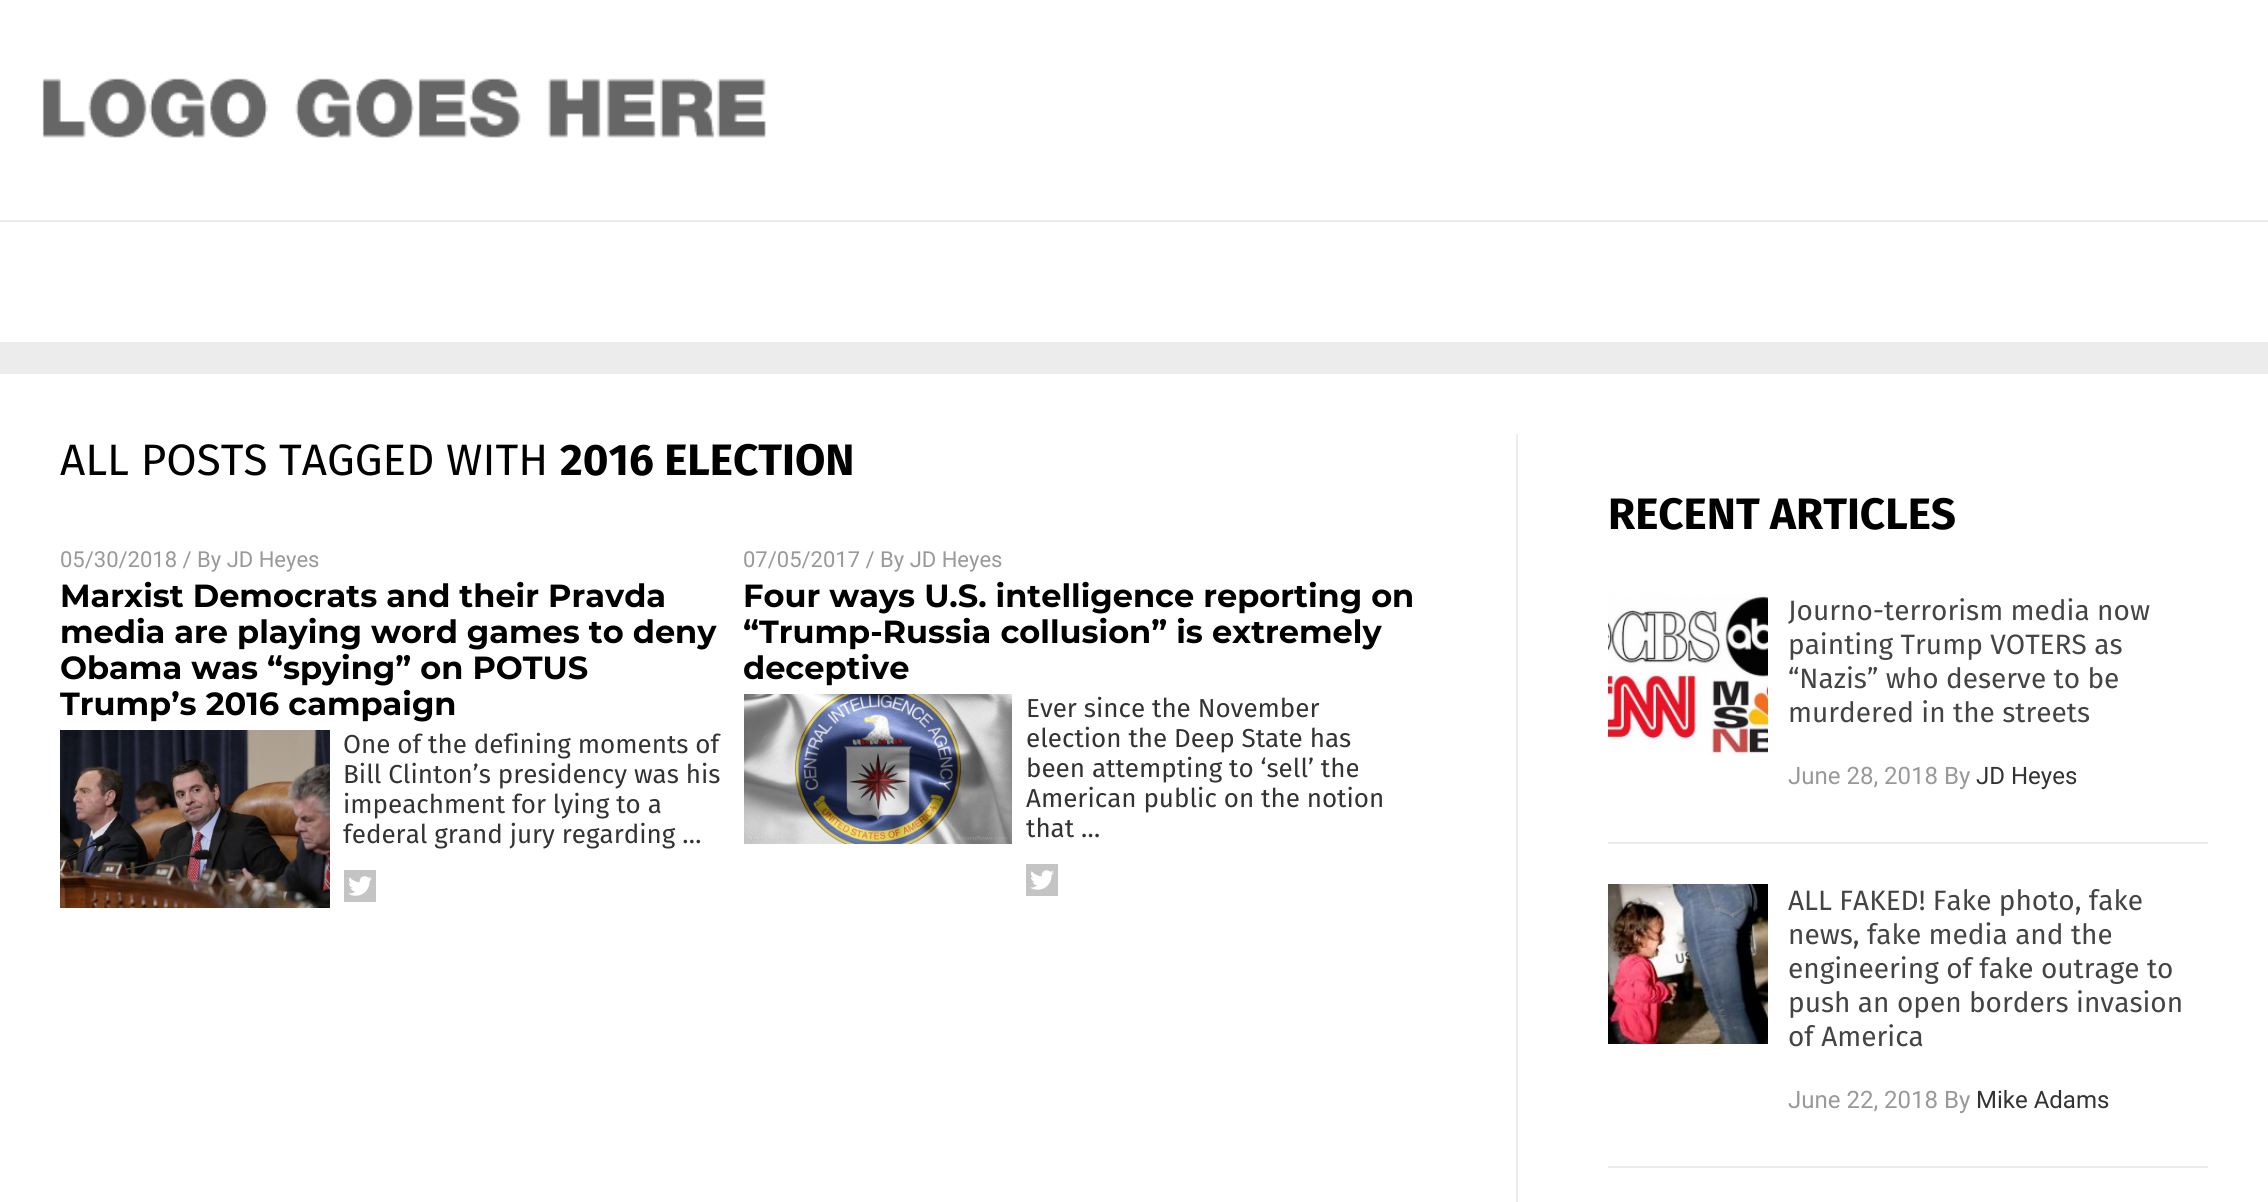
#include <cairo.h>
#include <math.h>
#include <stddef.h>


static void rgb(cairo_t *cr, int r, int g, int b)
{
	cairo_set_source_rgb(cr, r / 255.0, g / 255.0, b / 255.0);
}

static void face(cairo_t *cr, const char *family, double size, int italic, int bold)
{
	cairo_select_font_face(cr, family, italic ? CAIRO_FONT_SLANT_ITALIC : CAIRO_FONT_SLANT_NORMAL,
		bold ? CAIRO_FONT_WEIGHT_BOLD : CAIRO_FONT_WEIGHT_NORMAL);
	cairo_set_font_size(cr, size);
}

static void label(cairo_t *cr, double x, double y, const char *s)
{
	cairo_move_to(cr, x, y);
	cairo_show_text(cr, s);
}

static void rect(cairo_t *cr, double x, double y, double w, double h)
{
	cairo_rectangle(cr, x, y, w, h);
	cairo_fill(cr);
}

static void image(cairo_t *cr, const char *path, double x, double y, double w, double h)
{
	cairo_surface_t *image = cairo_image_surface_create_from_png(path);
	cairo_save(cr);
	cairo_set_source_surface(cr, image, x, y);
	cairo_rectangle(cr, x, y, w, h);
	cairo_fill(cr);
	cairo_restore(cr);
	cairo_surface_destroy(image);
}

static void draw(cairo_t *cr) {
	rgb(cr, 236, 236, 236);
	cairo_paint(cr);
	rgb(cr, 255, 255, 255);
	rect(cr, 0, 0, 2268, 220);
	image(cr, "image0.png", 42, 78, 724, 60);
	rect(cr, 0, 222, 2268, 120);
	rect(cr, 0, 374, 2268, 828);
	rgb(cr, 236, 236, 236);
	rect(cr, 1516, 434, 2, 768);
	face(cr, "Fira Sans", 44, 0, 0);
	rgb(cr, 0, 0, 0);
	label(cr, 60, 475, "ALL POSTS TAGGED WITH");
	face(cr, "Fira Sans", 44, 0, 1);
	label(cr, 560, 475, "2016 ELECTION");
	face(cr, "Roboto", 22, 0, 0);
	rgb(cr, 153, 153, 153);
	label(cr, 60, 567, "05/30/2018 / By JD Heyes");
	face(cr, "Montserrat", 32, 0, 1);
	rgb(cr, 0, 0, 0);
	label(cr, 60, 607, "Marxist Democrats and their Pravda");
	label(cr, 60, 643, "media are playing word games to deny");
	label(cr, 60, 679, "Obama was “spying” on POTUS");
	label(cr, 60, 715, "Trump’s 2016 campaign");
	image(cr, "image1.png", 60, 730, 270, 178);
	face(cr, "Fira Sans", 26, 0, 0);
	rgb(cr, 51, 51, 51);
	label(cr, 343, 753, "One of the defining moments of");
	label(cr, 343, 783, "Bill Clinton’s presidency was his");
	label(cr, 343, 813, "impeachment for lying to a");
	label(cr, 343, 843, "federal grand jury regarding …");
	rgb(cr, 196, 196, 196);
	rect(cr, 344, 870, 32, 32);
	image(cr, "image2.png", 348, 876, 24, 20);
	face(cr, "Roboto", 22, 0, 0);
	rgb(cr, 153, 153, 153);
	label(cr, 743, 567, "07/05/2017 / By JD Heyes");
	face(cr, "Montserrat", 32, 0, 1);
	rgb(cr, 0, 0, 0);
	label(cr, 743, 607, "Four ways U.S. intelligence reporting on");
	label(cr, 743, 643, "“Trump-Russia collusion” is extremely");
	label(cr, 743, 679, "deceptive");
	image(cr, "image3.png", 744, 694, 268, 150);
	face(cr, "Fira Sans", 26, 0, 0);
	rgb(cr, 51, 51, 51);
	label(cr, 1026, 717, "Ever since the November");
	label(cr, 1026, 747, "election the Deep State has");
	label(cr, 1026, 777, "been attempting to ‘sell’ the");
	label(cr, 1026, 807, "American public on the notion");
	label(cr, 1026, 837, "that …");
	rgb(cr, 196, 196, 196);
	rect(cr, 1026, 864, 32, 32);
	image(cr, "image2.png", 1030, 870, 24, 20);
	face(cr, "Fira Sans", 44, 0, 1);
	rgb(cr, 0, 0, 0);
	label(cr, 1608, 529, "RECENT ARTICLES");
	rgb(cr, 236, 236, 236);
	rect(cr, 1608, 842, 600, 2);
	image(cr, "image4.png", 1608, 594, 160, 160);
	face(cr, "Fira Sans", 28, 0, 0);
	rgb(cr, 68, 68, 68);
	label(cr, 1788, 620, "Journo-terrorism media now");
	label(cr, 1788, 654, "painting Trump VOTERS as");
	label(cr, 1788, 688, "“Nazis” who deserve to be");
	label(cr, 1788, 722, "murdered in the streets");
	face(cr, "Roboto", 24, 0, 0);
	rgb(cr, 153, 153, 153);
	label(cr, 1788, 784, "June 28, 2018 By");
	rgb(cr, 51, 51, 51);
	label(cr, 1976, 784, "JD Heyes");
	rgb(cr, 236, 236, 236);
	rect(cr, 1608, 1166, 600, 2);
	image(cr, "image5.png", 1608, 884, 160, 160);
	face(cr, "Fira Sans", 28, 0, 0);
	rgb(cr, 68, 68, 68);
	label(cr, 1788, 910, "ALL FAKED! Fake photo, fake");
	label(cr, 1788, 944, "news, fake media and the");
	label(cr, 1788, 978, "engineering of fake outrage to");
	label(cr, 1788, 1012, "push an open borders invasion");
	label(cr, 1788, 1046, "of America");
	face(cr, "Roboto", 24, 0, 0);
	rgb(cr, 153, 153, 153);
	label(cr, 1788, 1108, "June 22, 2018 By");
	rgb(cr, 51, 51, 51);
	label(cr, 1976, 1108, "Mike Adams");
}

int main(void) {
	cairo_surface_t *surface = cairo_image_surface_create(CAIRO_FORMAT_RGB24, 2268, 1202);
	cairo_t *cr = cairo_create(surface);
	cairo_font_options_t *options = cairo_font_options_create();
	cairo_font_options_set_hint_metrics(options, CAIRO_HINT_METRICS_OFF);
	cairo_font_options_set_hint_style(options, CAIRO_HINT_STYLE_NONE);
	cairo_set_font_options(cr, options);
	cairo_set_miter_limit(cr, 4);
	draw(cr);
	cairo_surface_write_to_png(surface, "render.png");
	cairo_font_options_destroy(options);
	cairo_destroy(cr);
	cairo_surface_destroy(surface);
	return 0;
}
